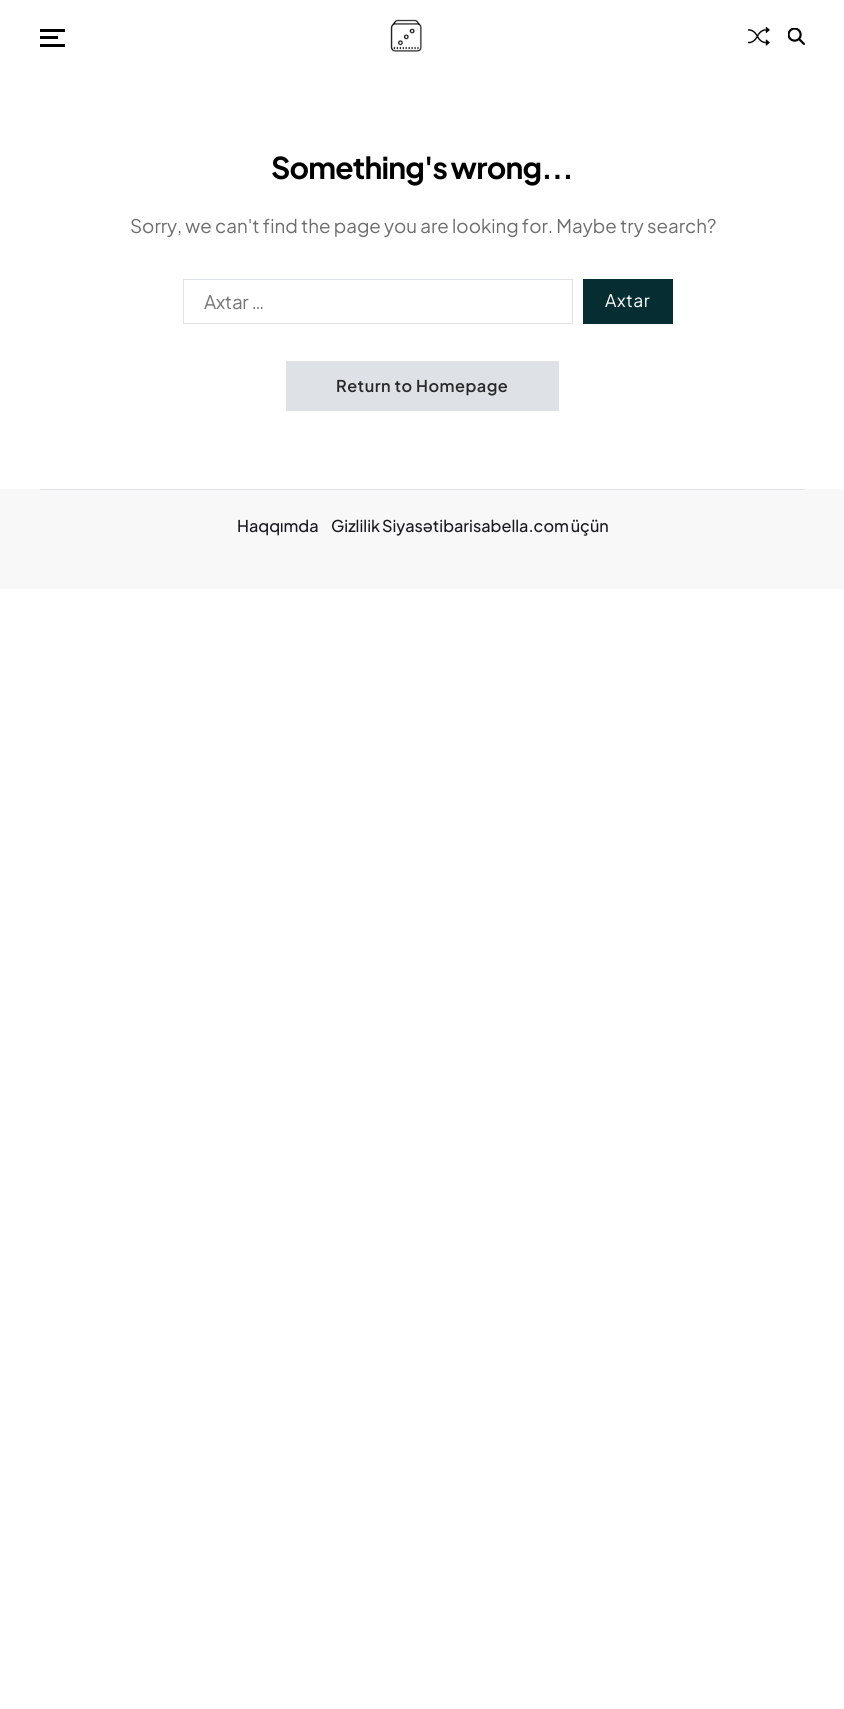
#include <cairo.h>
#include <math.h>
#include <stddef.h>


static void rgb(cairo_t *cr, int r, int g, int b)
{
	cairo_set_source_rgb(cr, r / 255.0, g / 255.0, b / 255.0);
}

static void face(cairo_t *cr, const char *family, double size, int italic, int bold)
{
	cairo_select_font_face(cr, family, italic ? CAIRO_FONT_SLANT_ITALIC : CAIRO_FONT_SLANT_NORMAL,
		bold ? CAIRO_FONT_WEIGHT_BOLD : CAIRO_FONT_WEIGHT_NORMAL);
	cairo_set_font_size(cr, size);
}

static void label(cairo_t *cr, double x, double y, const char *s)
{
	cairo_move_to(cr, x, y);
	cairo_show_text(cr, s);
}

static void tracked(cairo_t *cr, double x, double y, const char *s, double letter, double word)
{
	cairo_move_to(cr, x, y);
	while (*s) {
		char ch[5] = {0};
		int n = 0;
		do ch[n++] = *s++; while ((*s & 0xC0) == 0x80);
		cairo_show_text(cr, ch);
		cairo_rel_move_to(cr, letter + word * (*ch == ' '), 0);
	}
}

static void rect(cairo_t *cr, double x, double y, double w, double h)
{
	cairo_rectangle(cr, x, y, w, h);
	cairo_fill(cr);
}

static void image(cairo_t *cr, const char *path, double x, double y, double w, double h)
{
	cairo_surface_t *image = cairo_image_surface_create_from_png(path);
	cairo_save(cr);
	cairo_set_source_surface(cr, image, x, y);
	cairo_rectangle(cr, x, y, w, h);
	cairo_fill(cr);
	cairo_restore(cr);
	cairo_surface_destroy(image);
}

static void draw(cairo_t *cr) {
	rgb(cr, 255, 255, 255);
	cairo_paint(cr);
	rgb(cr, 1, 1, 1);
	rect(cr, 40, 29, 25, 3);
	rect(cr, 40, 36, 18, 3);
	rect(cr, 40, 44, 25, 3);
	image(cr, "image0.png", 390, 19, 32, 33);
	image(cr, "image1.png", 748, 26, 22, 20);
	image(cr, "image2.png", 788, 28, 17, 17);
	face(cr, "Plus Jakarta Sans", 30, 0, 1);
	rgb(cr, 0, 0, 0);
	tracked(cr, 271, 179, "Something's wrong...", -0.8, -1);
	face(cr, "Plus Jakarta Sans", 18.75, 0, 0);
	rgb(cr, 109, 109, 109);
	label(cr, 130, 233, "Sorry, we can't find the page you are looking for. Maybe try search?");
	cairo_rectangle(cr, 183.5, 279.5, 389, 44);
	rgb(cr, 222, 226, 230);
	cairo_set_line_width(cr, 1);
	cairo_stroke(cr);
	rgb(cr, 117, 117, 117);
	tracked(cr, 204, 309, "Axtar …", -0.25, 0);
	rgb(cr, 5, 45, 50);
	rect(cr, 583, 279, 90, 45);
	face(cr, "Plus Jakarta Sans", 17.5, 0, 0);
	rgb(cr, 255, 255, 255);
	tracked(cr, 605, 307, "Axtar", 0.5, 0);
	rgb(cr, 222, 226, 230);
	rect(cr, 286, 361, 273, 50);
	face(cr, "Plus Jakarta Sans SemiBold", 16.25, 0, 0);
	rgb(cr, 40, 40, 40);
	tracked(cr, 336, 392, "Return to Homepage", 0.5, 0);
	rgb(cr, 248, 248, 248);
	rect(cr, 0, 489, 844, 100);
	rgb(cr, 222, 226, 230);
	rect(cr, 40, 489, 765, 1);
	face(cr, "Plus Jakarta Sans Medium", 16.25, 0, 0);
	rgb(cr, 25, 26, 31);
	label(cr, 237, 532, "Haqqımda");
	tracked(cr, 331, 532, "Gizlilik Siyasətibarisabella.com üçün", 0, -1);
}

int main(void) {
	cairo_surface_t *surface = cairo_image_surface_create(CAIRO_FORMAT_RGB24, 844, 1709);
	cairo_t *cr = cairo_create(surface);
	cairo_font_options_t *options = cairo_font_options_create();
	cairo_font_options_set_hint_metrics(options, CAIRO_HINT_METRICS_OFF);
	cairo_font_options_set_hint_style(options, CAIRO_HINT_STYLE_NONE);
	cairo_set_font_options(cr, options);
	cairo_set_miter_limit(cr, 4);
	draw(cr);
	cairo_surface_write_to_png(surface, "render.png");
	cairo_font_options_destroy(options);
	cairo_destroy(cr);
	cairo_surface_destroy(surface);
	return 0;
}
